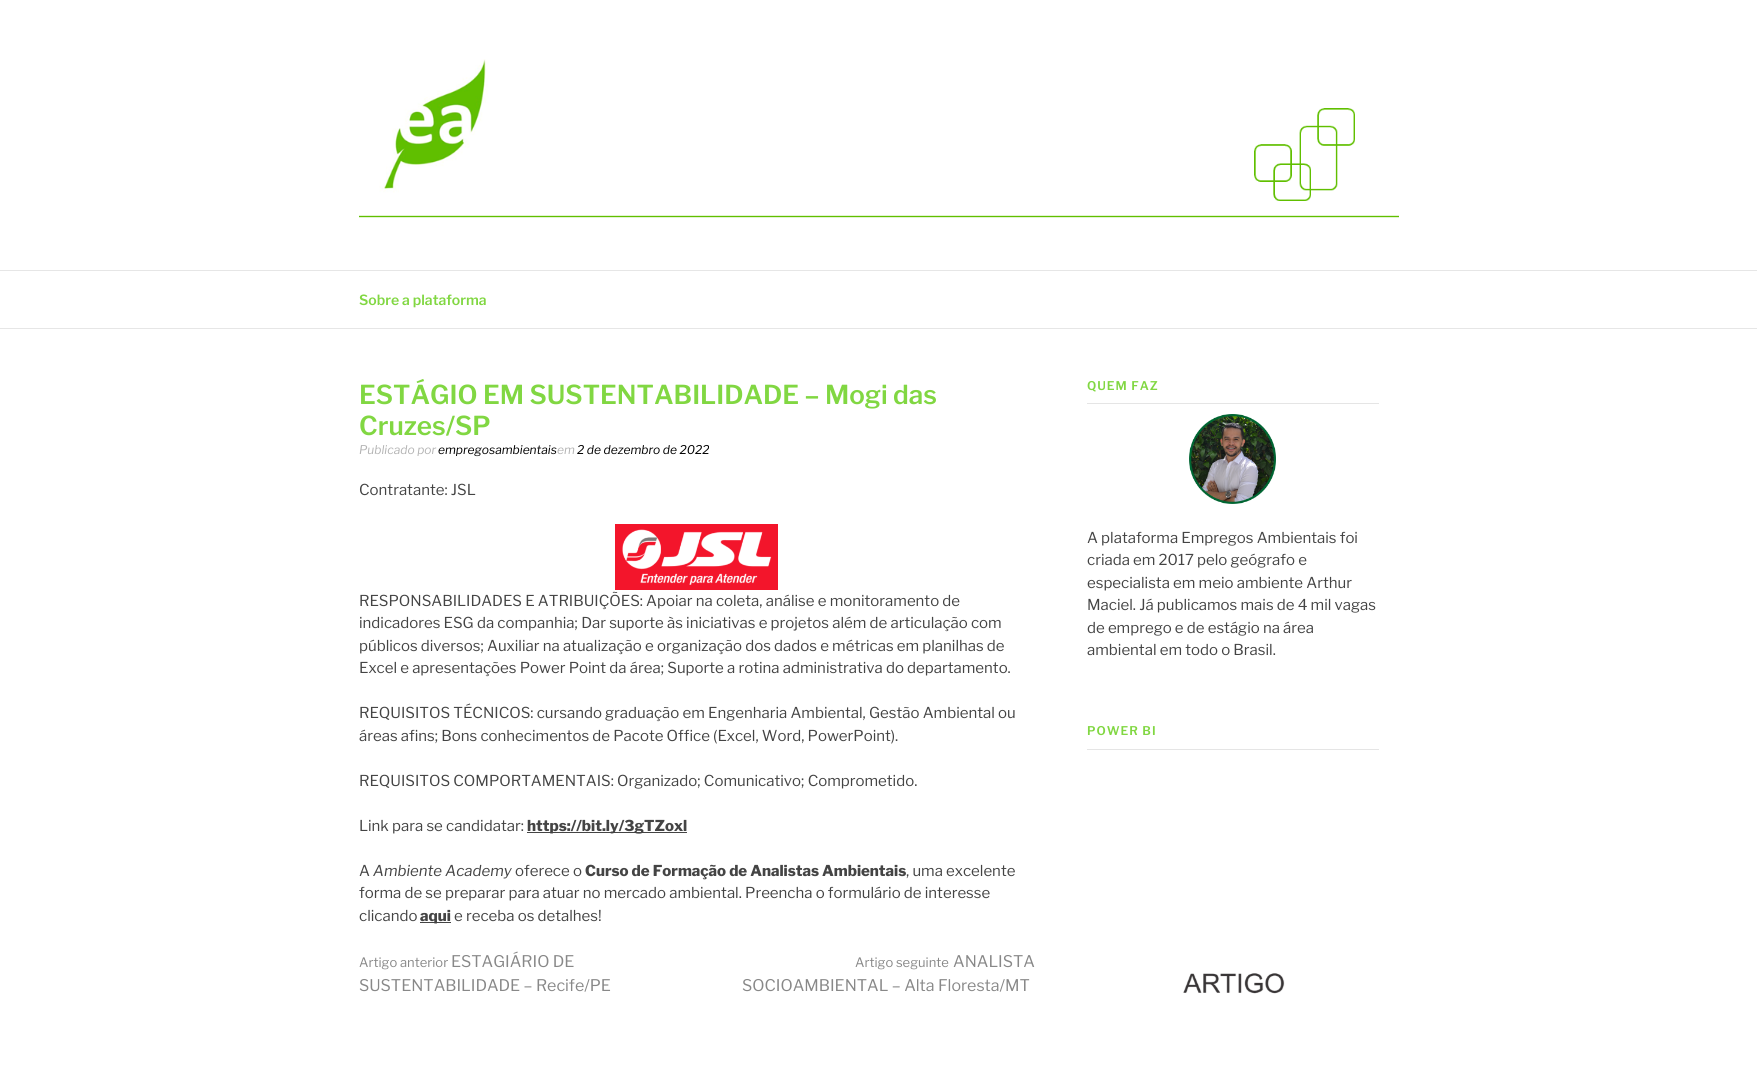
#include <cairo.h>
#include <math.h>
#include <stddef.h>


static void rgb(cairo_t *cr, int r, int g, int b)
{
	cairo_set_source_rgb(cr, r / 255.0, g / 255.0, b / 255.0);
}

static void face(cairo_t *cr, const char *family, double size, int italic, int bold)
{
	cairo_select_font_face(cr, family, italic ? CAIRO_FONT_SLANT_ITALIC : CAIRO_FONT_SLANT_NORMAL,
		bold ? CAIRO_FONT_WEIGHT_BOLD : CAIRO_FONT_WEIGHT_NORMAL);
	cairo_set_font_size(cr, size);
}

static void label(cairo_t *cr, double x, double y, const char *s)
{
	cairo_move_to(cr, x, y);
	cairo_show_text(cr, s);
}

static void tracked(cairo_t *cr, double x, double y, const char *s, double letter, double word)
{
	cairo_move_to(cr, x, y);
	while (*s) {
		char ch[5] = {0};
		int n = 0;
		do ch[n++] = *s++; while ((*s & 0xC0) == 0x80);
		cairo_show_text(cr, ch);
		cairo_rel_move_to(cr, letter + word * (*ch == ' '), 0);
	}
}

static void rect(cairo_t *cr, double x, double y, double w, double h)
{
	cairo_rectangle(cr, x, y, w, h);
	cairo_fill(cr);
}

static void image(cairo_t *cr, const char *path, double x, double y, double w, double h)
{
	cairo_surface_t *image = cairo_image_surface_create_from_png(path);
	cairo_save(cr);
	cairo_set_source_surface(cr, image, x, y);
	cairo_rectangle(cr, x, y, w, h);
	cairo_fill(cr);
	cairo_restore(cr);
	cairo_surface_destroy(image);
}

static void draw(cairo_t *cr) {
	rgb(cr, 255, 255, 255);
	cairo_paint(cr);
	image(cr, "image0.png", 359, 59, 1040, 159);
	rgb(cr, 230, 230, 230);
	rect(cr, 0, 270, 1757, 1);
	rect(cr, 0, 328, 1757, 1);
	face(cr, "Libre Franklin SemiBold", 14, 0, 0);
	rgb(cr, 129, 215, 66);
	label(cr, 359, 305, "Sobre a plataforma");
	face(cr, "Libre Franklin SemiBold", 26, 0, 0);
	label(cr, 359, 404, "ESTÁGIO EM SUSTENTABILIDADE – Mogi das");
	label(cr, 359, 435, "Cruzes/SP");
	face(cr, "Libre Franklin", 12, 1, 0);
	rgb(cr, 180, 180, 180);
	label(cr, 359, 454, "Publicado por");
	rgb(cr, 0, 0, 0);
	label(cr, 438, 454, "empregosambientais");
	rgb(cr, 180, 180, 180);
	label(cr, 557, 454, "em");
	rgb(cr, 0, 0, 0);
	label(cr, 577, 454, "2 de dezembro de 2022");
	face(cr, "Libre Franklin", 15, 0, 0);
	rgb(cr, 68, 68, 68);
	label(cr, 359, 495, "Contratante: JSL");
	image(cr, "image1.png", 615, 524, 163, 66);
	label(cr, 359, 606, "RESPONSABILIDADES E ATRIBUIÇÕES: Apoiar na coleta, análise e monitoramento de");
	label(cr, 359, 628, "indicadores ESG da companhia; Dar suporte às iniciativas e projetos além de articulação com");
	label(cr, 359, 651, "públicos diversos; Auxiliar na atualização e organização dos dados e métricas em planilhas de");
	label(cr, 359, 673, "Excel e apresentações Power Point da área; Suporte a rotina administrativa do departamento.");
	label(cr, 359, 718, "REQUISITOS TÉCNICOS: cursando graduação em Engenharia Ambiental, Gestão Ambiental ou");
	label(cr, 359, 741, "áreas afins; Bons conhecimentos de Pacote Office (Excel, Word, PowerPoint).");
	label(cr, 359, 786, "REQUISITOS COMPORTAMENTAIS: Organizado; Comunicativo; Comprometido.");
	label(cr, 359, 831, "Link para se candidatar:");
	rect(cr, 527, 832, 160, 1);
	face(cr, "Libre Franklin ExtraBold", 15, 0, 0);
	label(cr, 527, 831, "https://bit.ly/3gTZoxl");
	face(cr, "Libre Franklin", 15, 0, 0);
	label(cr, 359, 876, "A");
	face(cr, "Libre Franklin", 15, 1, 0);
	label(cr, 373, 876, "Ambiente Academy");
	face(cr, "Libre Franklin", 15, 0, 0);
	label(cr, 515, 876, "oferece o");
	face(cr, "Libre Franklin ExtraBold", 15, 0, 0);
	label(cr, 585, 876, "Curso de Formação de Analistas Ambientais");
	face(cr, "Libre Franklin", 15, 0, 0);
	label(cr, 906, 876, ", uma excelente");
	label(cr, 359, 898, "forma de se preparar para atuar no mercado ambiental. Preencha o formulário de interesse");
	label(cr, 359, 921, "clicando");
	rect(cr, 420, 922, 31, 1);
	face(cr, "Libre Franklin ExtraBold", 15, 0, 0);
	label(cr, 420, 921, "aqui");
	face(cr, "Libre Franklin", 15, 0, 0);
	label(cr, 454, 921, "e receba os detalhes!");
	face(cr, "Libre Franklin", 13, 0, 0);
	rgb(cr, 136, 136, 136);
	label(cr, 359, 967, "Artigo anterior");
	face(cr, "Libre Franklin", 16, 0, 0);
	label(cr, 451, 967, "ESTAGIÁRIO DE");
	label(cr, 359, 991, "SUSTENTABILIDADE – Recife/PE");
	face(cr, "Libre Franklin", 13, 0, 0);
	label(cr, 855, 967, "Artigo seguinte");
	face(cr, "Libre Franklin", 16, 0, 0);
	label(cr, 953, 967, "ANALISTA");
	label(cr, 742, 991, "SOCIOAMBIENTAL – Alta Floresta/MT");
	rgb(cr, 229, 229, 229);
	rect(cr, 1087, 403, 292, 1);
	face(cr, "Libre Franklin SemiBold", 12, 0, 0);
	rgb(cr, 129, 215, 66);
	tracked(cr, 1087, 390, "QUEM FAZ", 1, 0);
	image(cr, "image2.png", 1189, 414, 87, 90);
	face(cr, "Libre Franklin", 15, 0, 0);
	rgb(cr, 68, 68, 68);
	label(cr, 1087, 543, "A plataforma Empregos Ambientais foi");
	label(cr, 1087, 565, "criada em 2017 pelo geógrafo e");
	label(cr, 1087, 588, "especialista em meio ambiente Arthur");
	label(cr, 1087, 610, "Maciel. Já publicamos mais de 4 mil vagas");
	label(cr, 1087, 633, "de emprego e de estágio na área");
	label(cr, 1087, 655, "ambiental em todo o Brasil.");
	rgb(cr, 229, 229, 229);
	rect(cr, 1087, 749, 292, 1);
	face(cr, "Libre Franklin SemiBold", 12, 0, 0);
	rgb(cr, 129, 215, 66);
	tracked(cr, 1087, 735, "POWER BI", 1, 0);
	image(cr, "image3.png", 1183, 973, 102, 21);
}

int main(void) {
	cairo_surface_t *surface = cairo_image_surface_create(CAIRO_FORMAT_RGB24, 1757, 1071);
	cairo_t *cr = cairo_create(surface);
	cairo_font_options_t *options = cairo_font_options_create();
	cairo_font_options_set_hint_metrics(options, CAIRO_HINT_METRICS_OFF);
	cairo_font_options_set_hint_style(options, CAIRO_HINT_STYLE_NONE);
	cairo_set_font_options(cr, options);
	cairo_set_miter_limit(cr, 4);
	draw(cr);
	cairo_surface_write_to_png(surface, "render.png");
	cairo_font_options_destroy(options);
	cairo_destroy(cr);
	cairo_surface_destroy(surface);
	return 0;
}
